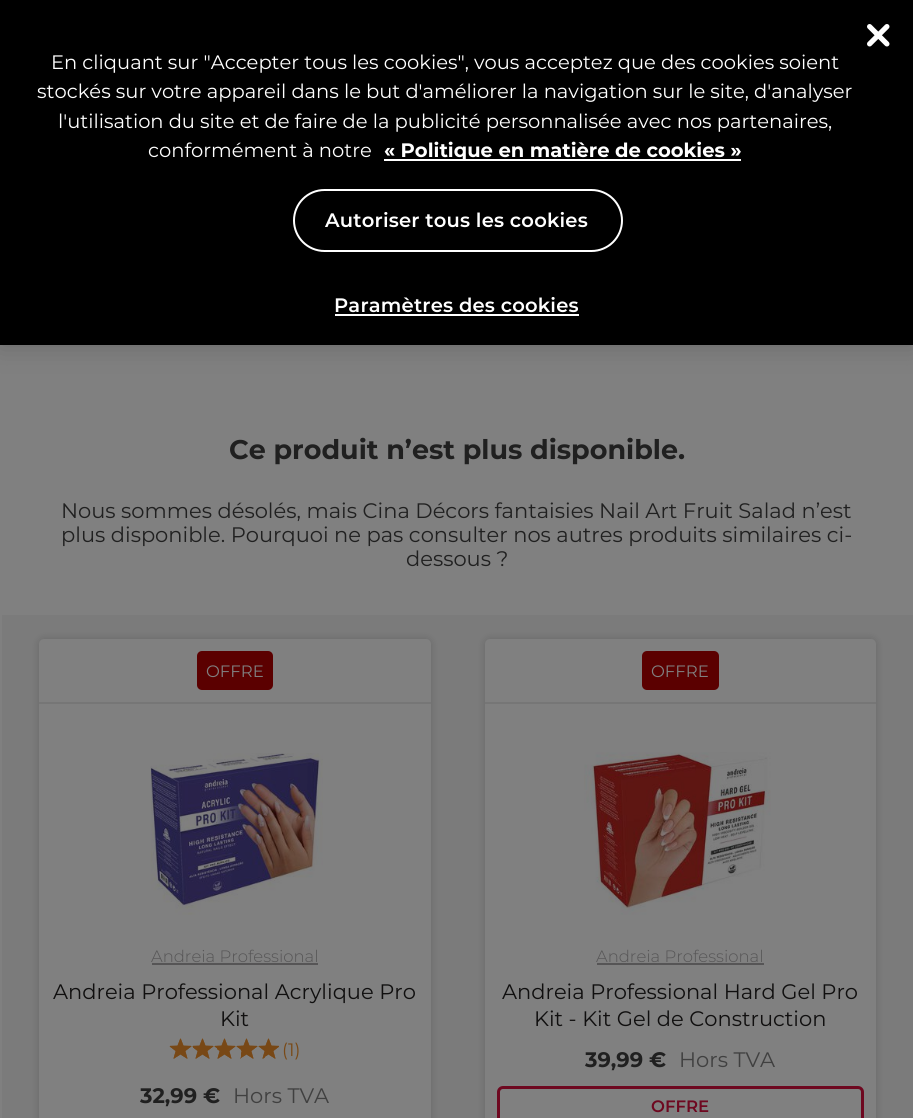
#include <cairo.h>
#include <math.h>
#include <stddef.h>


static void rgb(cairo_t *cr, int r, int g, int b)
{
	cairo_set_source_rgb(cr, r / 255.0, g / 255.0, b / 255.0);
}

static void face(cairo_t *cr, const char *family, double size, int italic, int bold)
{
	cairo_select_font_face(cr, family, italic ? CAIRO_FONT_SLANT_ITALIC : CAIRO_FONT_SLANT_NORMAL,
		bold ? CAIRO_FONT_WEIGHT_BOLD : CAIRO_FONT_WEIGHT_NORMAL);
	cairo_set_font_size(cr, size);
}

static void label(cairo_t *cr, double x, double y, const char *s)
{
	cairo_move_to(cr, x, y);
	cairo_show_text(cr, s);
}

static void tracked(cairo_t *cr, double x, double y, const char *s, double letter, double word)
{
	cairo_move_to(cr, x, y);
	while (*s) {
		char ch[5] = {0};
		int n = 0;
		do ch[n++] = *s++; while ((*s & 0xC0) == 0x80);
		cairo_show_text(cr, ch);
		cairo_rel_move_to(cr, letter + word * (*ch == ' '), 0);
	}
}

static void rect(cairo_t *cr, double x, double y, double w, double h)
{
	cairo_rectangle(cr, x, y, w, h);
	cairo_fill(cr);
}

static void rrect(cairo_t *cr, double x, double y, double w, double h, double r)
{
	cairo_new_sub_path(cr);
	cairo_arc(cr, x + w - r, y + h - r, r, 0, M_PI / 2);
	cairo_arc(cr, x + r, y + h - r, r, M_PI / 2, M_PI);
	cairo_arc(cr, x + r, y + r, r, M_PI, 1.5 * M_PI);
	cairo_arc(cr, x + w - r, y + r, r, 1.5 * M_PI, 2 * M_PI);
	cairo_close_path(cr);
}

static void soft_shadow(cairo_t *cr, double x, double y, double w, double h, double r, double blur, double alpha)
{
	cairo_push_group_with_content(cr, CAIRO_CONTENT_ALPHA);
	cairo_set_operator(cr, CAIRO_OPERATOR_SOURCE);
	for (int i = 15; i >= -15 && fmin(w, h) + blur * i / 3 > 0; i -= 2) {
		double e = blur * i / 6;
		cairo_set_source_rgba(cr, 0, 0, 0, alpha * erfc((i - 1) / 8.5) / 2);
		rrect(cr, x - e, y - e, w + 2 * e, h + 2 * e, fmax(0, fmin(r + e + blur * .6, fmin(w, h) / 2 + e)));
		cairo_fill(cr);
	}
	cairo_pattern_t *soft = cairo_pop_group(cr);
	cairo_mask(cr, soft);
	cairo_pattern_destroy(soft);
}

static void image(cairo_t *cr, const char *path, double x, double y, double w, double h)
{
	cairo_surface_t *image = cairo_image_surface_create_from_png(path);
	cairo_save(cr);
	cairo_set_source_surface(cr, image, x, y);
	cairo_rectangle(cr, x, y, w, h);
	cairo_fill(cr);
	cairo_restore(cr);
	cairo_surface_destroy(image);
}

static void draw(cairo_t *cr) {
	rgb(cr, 128, 128, 128);
	cairo_paint(cr);
	rgb(cr, 0, 0, 0);
	soft_shadow(cr, 0, 0, 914, 345, 0, 13.5, 0.2);
	rgb(cr, 0, 0, 0);
	rect(cr, 0, 0, 913, 345);
	image(cr, "image0.png", 867, 24, 23, 23);
	face(cr, "Montserrat", 19.5, 0, 0);
	rgb(cr, 255, 255, 255);
	label(cr, 51, 69, "En cliquant sur \"Accepter tous les cookies\", vous acceptez que des cookies soient");
	label(cr, 37, 98, "stockés sur votre appareil dans le but d'améliorer la navigation sur le site, d'analyser");
	label(cr, 58, 128, "l'utilisation du site et de faire de la publicité personnalisée avec nos partenaires,");
	label(cr, 148, 157, "conformément à notre");
	rect(cr, 384, 159, 357, 2);
	face(cr, "Montserrat", 19.5, 0, 1);
	label(cr, 384, 157, "« Politique en matière de cookies »");
	rrect(cr, 294, 190, 328, 61, 30.5);
	cairo_stroke(cr);
	face(cr, "Montserrat SemiBold", 19.5, 0, 0);
	tracked(cr, 325, 227, "Autoriser tous les cookies", 0.2, 0);
	tracked(cr, 334, 312, "Paramètres des cookies", 0.2, 0);
	rect(cr, 335, 314, 244, 2);
	face(cr, "Montserrat", 27, 0, 1);
	rgb(cr, 32, 32, 32);
	label(cr, 229, 459, "Ce produit n’est plus disponible.");
	face(cr, "Montserrat", 21, 0, 0);
	label(cr, 61, 518, "Nous sommes désolés, mais Cina Décors fantaisies Nail Art Fruit Salad n’est");
	label(cr, 61, 542, "plus disponible. Pourquoi ne pas consulter nos autres produits similaires ci-");
	label(cr, 406, 566, "dessous ?");
	rgb(cr, 123, 123, 123);
	rect(cr, 2, 615, 911, 503);
	rgb(cr, 0, 0, 0);
	soft_shadow(cr, 39, 639, 392, 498, 5, 4.5, 0.16);
	rgb(cr, 128, 128, 128);
	rrect(cr, 39, 639, 392, 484, 5);
	cairo_fill(cr);
	rgb(cr, 118, 118, 118);
	rect(cr, 39, 702, 392, 2);
	rgb(cr, 91, 0, 0);
	rrect(cr, 197, 651, 76, 39, 5);
	cairo_fill(cr);
	face(cr, "Montserrat", 16.5, 0, 0);
	rgb(cr, 128, 128, 128);
	label(cr, 206, 677, "OFFRE");
	image(cr, "image1.png", 150, 753, 173, 162);
	face(cr, "Montserrat Light", 16.5, 0, 0);
	rgb(cr, 86, 85, 86);
	label(cr, 151, 962, "Andreia Professional");
	rect(cr, 152, 963, 166, 2);
	face(cr, "Montserrat", 21, 0, 0);
	rgb(cr, 16, 15, 15);
	label(cr, 53, 999, "Andreia Professional Acrylique Pro");
	label(cr, 220, 1026, "Kit");
	image(cr, "image3.png", 170, 1039, 109, 20);
	image(cr, "image2.png", 169, 1038, 110, 21);
	face(cr, "Montserrat", 18, 0, 0);
	rgb(cr, 121, 73, 22);
	label(cr, 282, 1056, "(1)");
	face(cr, "Montserrat", 21, 0, 1);
	rgb(cr, 32, 32, 32);
	label(cr, 140, 1103, "32,99 €");
	face(cr, "Montserrat", 21, 0, 0);
	rgb(cr, 64, 64, 64);
	label(cr, 233, 1103, "Hors TVA");
	rgb(cr, 0, 0, 0);
	soft_shadow(cr, 485, 639, 391, 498, 5, 4.5, 0.16);
	rgb(cr, 128, 128, 128);
	rrect(cr, 485, 639, 391, 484, 5);
	cairo_fill(cr);
	rgb(cr, 118, 118, 118);
	rect(cr, 485, 702, 391, 2);
	rgb(cr, 91, 0, 0);
	rrect(cr, 642, 651, 77, 39, 5);
	cairo_fill(cr);
	face(cr, "Montserrat", 16.5, 0, 0);
	rgb(cr, 128, 128, 128);
	label(cr, 651, 677, "OFFRE");
	image(cr, "image4.png", 584, 752, 187, 163);
	face(cr, "Montserrat Light", 16.5, 0, 0);
	rgb(cr, 86, 85, 86);
	label(cr, 596, 962, "Andreia Professional");
	rect(cr, 597, 963, 167, 2);
	face(cr, "Montserrat", 21, 0, 0);
	rgb(cr, 16, 15, 15);
	label(cr, 502, 999, "Andreia Professional Hard Gel Pro");
	label(cr, 534, 1026, "Kit - Kit Gel de Construction");
	face(cr, "Montserrat", 21, 0, 1);
	rgb(cr, 32, 32, 32);
	label(cr, 585, 1067, "39,99 €");
	face(cr, "Montserrat", 21, 0, 0);
	rgb(cr, 64, 64, 64);
	label(cr, 679, 1067, "Hors TVA");
	rrect(cr, 498.5, 1087.5, 364, 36, 4.5);
	rgb(cr, 110, 8, 32);
	cairo_set_line_width(cr, 3);
	cairo_stroke(cr);
	face(cr, "Montserrat SemiBold", 16.5, 0, 0);
	label(cr, 651, 1112, "OFFRE");
}

int main(void) {
	cairo_surface_t *surface = cairo_image_surface_create(CAIRO_FORMAT_RGB24, 913, 1118);
	cairo_t *cr = cairo_create(surface);
	cairo_font_options_t *options = cairo_font_options_create();
	cairo_font_options_set_hint_metrics(options, CAIRO_HINT_METRICS_OFF);
	cairo_font_options_set_hint_style(options, CAIRO_HINT_STYLE_NONE);
	cairo_set_font_options(cr, options);
	cairo_set_miter_limit(cr, 4);
	draw(cr);
	cairo_surface_write_to_png(surface, "render.png");
	cairo_font_options_destroy(options);
	cairo_destroy(cr);
	cairo_surface_destroy(surface);
	return 0;
}
